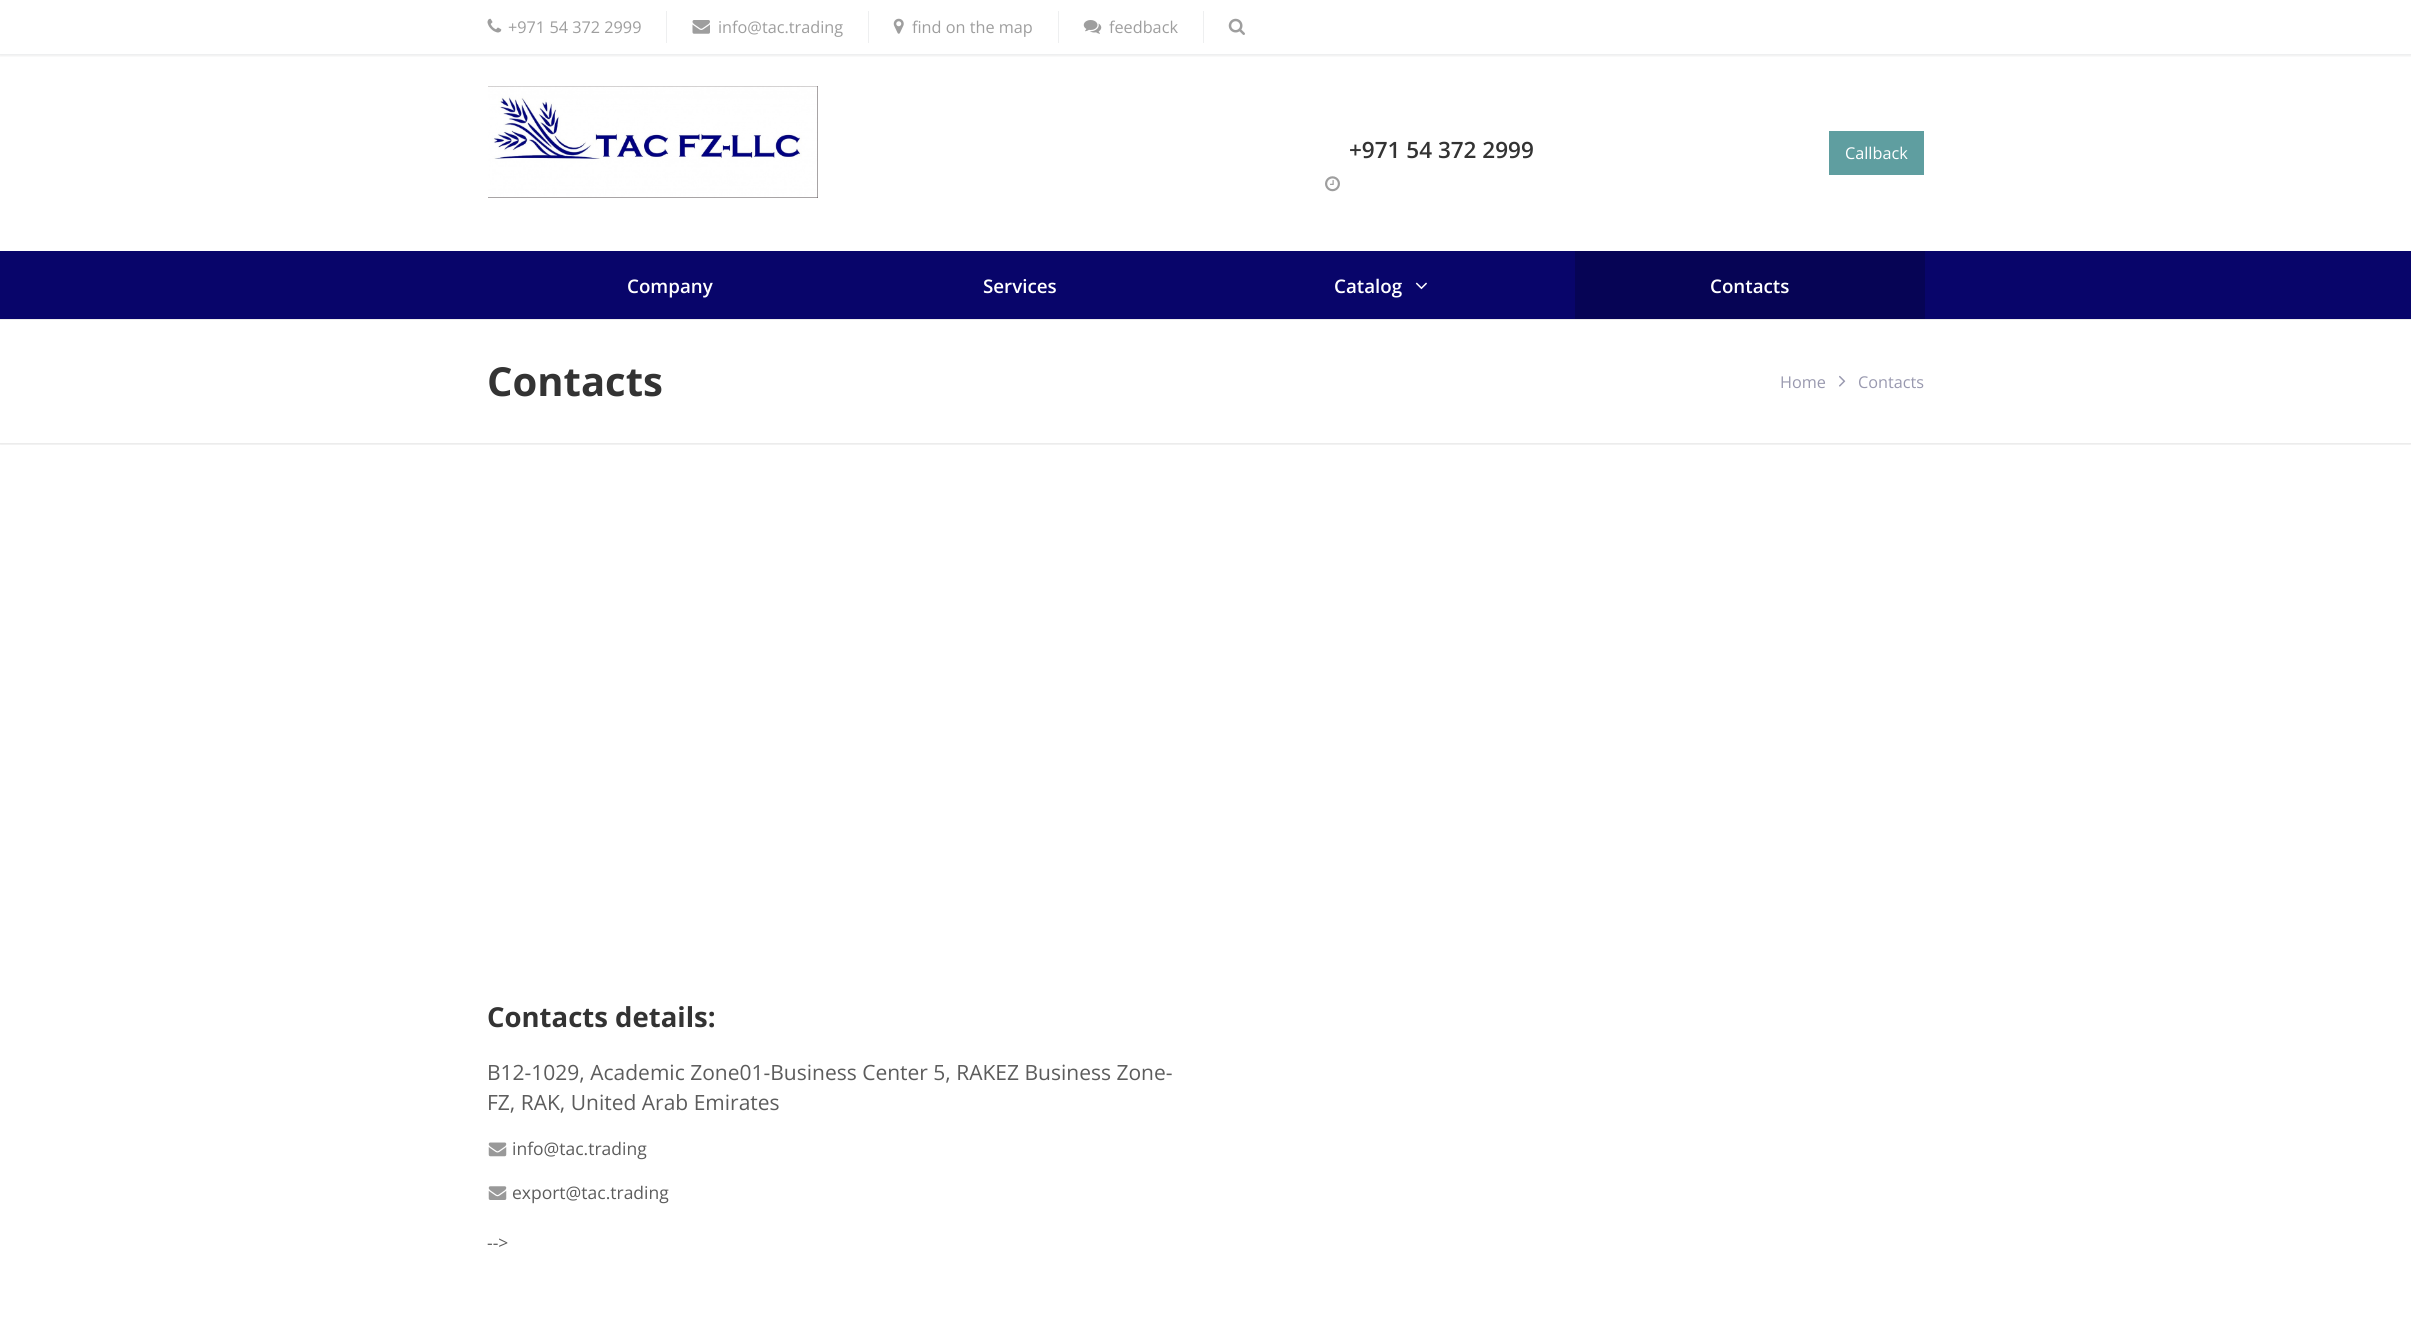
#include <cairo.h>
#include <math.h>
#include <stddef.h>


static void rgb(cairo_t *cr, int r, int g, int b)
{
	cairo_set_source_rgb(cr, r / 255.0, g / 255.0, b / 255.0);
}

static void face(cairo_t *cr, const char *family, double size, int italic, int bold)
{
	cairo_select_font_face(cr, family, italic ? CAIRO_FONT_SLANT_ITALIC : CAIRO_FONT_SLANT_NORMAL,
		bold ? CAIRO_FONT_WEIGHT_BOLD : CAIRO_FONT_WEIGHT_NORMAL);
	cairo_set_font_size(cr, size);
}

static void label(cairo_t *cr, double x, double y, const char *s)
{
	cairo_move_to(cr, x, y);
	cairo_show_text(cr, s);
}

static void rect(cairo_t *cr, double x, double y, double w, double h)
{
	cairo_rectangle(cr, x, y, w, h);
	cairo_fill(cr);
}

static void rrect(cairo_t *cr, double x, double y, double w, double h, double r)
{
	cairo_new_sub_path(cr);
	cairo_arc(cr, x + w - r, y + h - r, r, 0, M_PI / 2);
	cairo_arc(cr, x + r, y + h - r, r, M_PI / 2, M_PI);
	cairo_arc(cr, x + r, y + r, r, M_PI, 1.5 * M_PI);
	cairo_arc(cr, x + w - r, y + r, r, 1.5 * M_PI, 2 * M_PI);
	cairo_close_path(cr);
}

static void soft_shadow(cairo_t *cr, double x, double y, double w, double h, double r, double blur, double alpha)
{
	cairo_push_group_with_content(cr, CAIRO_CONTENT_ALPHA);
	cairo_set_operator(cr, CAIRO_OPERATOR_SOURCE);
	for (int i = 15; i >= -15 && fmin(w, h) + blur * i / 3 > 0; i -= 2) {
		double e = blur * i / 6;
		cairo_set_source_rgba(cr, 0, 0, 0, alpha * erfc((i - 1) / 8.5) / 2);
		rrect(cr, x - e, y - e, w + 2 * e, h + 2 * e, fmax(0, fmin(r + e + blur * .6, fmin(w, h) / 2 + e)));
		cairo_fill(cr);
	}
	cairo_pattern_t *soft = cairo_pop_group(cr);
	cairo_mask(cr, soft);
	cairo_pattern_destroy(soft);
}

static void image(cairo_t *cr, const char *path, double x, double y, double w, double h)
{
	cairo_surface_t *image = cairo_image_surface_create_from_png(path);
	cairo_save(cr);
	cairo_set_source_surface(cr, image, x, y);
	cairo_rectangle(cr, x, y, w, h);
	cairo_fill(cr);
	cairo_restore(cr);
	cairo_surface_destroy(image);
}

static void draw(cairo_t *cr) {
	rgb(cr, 255, 255, 255);
	cairo_paint(cr);
	cairo_save(cr);
	cairo_rectangle(cr, 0, 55, 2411, 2);
	cairo_clip(cr);
	rgb(cr, 0, 0, 0);
	soft_shadow(cr, 0, 0, 2411, 55, 0, 2, 0.12);
	cairo_restore(cr);
	rgb(cr, 238, 239, 240);
	rect(cr, 0, 54, 2411, 1);
	image(cr, "image0.png", 487, 18, 15, 15);
	face(cr, "Open Sans", 16.25, 0, 0);
	rgb(cr, 158, 158, 158);
	label(cr, 508, 33, "+971 54 372 2999");
	rgb(cr, 238, 239, 240);
	rect(cr, 666, 11, 1, 32);
	image(cr, "image1.png", 692, 20, 18, 14);
	rgb(cr, 158, 158, 158);
	label(cr, 718, 33, "info@tac.trading");
	rgb(cr, 238, 239, 240);
	rect(cr, 868, 11, 1, 32);
	image(cr, "image2.png", 893, 18, 11, 16);
	rgb(cr, 158, 158, 158);
	label(cr, 912, 33, "find on the map");
	rgb(cr, 238, 239, 240);
	rect(cr, 1058, 11, 1, 32);
	image(cr, "image3.png", 1083, 20, 19, 14);
	rgb(cr, 158, 158, 158);
	label(cr, 1109, 33, "feedback");
	rgb(cr, 238, 239, 240);
	rect(cr, 1203, 11, 1, 32);
	image(cr, "image4.png", 1228, 18, 17, 17);
	rgb(cr, 81, 72, 74);
	rect(cr, 488, 86, 330, 112);
	image(cr, "image5.png", 488, 86, 330, 112);
	face(cr, "Open Sans SemiBold", 22.5, 0, 0);
	rgb(cr, 51, 51, 51);
	label(cr, 1349, 158, "+971 54 372 2999");
	image(cr, "image6.png", 1325, 176, 15, 16);
	rgb(cr, 95, 158, 160);
	rect(cr, 1829, 131, 95, 44);
	face(cr, "Open Sans", 16.25, 0, 0);
	rgb(cr, 255, 255, 255);
	label(cr, 1845, 159, "Callback");
	cairo_save(cr);
	cairo_rectangle(cr, 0, 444, 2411, 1);
	cairo_clip(cr);
	rgb(cr, 0, 0, 0);
	soft_shadow(cr, 0, 319, 2411, 125, 0, 1, 0.15);
	cairo_restore(cr);
	rgb(cr, 8, 5, 106);
	rect(cr, 0, 251, 2411, 68);
	face(cr, "Open Sans SemiBold", 18.75, 0, 0);
	rgb(cr, 255, 255, 255);
	label(cr, 627, 293, "Company");
	label(cr, 983, 293, "Services");
	label(cr, 1334, 293, "Catalog");
	image(cr, "image7.png", 1415, 282, 12, 8);
	rgb(cr, 6, 4, 85);
	rect(cr, 1575, 251, 350, 68);
	rgb(cr, 255, 255, 255);
	label(cr, 1710, 293, "Contacts");
	rgb(cr, 236, 236, 236);
	rect(cr, 0, 319, 2411, 1);
	rect(cr, 0, 443, 2411, 1);
	face(cr, "Open Sans", 40, 0, 1);
	rgb(cr, 51, 51, 51);
	label(cr, 487, 396, "Contacts");
	face(cr, "Open Sans", 16.25, 0, 0);
	rgb(cr, 153, 153, 175);
	label(cr, 1780, 388, "Home");
	image(cr, "image8.png", 1839, 375, 7, 12);
	label(cr, 1858, 388, "Contacts");
	face(cr, "Open Sans", 27.5, 0, 1);
	rgb(cr, 51, 51, 51);
	label(cr, 487, 1027, "Contacts details:");
	face(cr, "Open Sans", 21, 0, 0);
	rgb(cr, 92, 92, 92);
	label(cr, 487, 1080, "B12-1029, Academic Zone01-Business Center 5, RAKEZ Business Zone-");
	label(cr, 487, 1110, "FZ, RAK, United Arab Emirates");
	image(cr, "image9.png", 488, 1142, 19, 15);
	face(cr, "Open Sans", 17.5, 0, 0);
	label(cr, 512, 1155, "info@tac.trading");
	image(cr, "image10.png", 488, 1186, 19, 14);
	label(cr, 512, 1199, "export@tac.trading");
	label(cr, 487, 1249, "-->");
}

int main(void) {
	cairo_surface_t *surface = cairo_image_surface_create(CAIRO_FORMAT_RGB24, 2411, 1323);
	cairo_t *cr = cairo_create(surface);
	cairo_font_options_t *options = cairo_font_options_create();
	cairo_font_options_set_hint_metrics(options, CAIRO_HINT_METRICS_OFF);
	cairo_font_options_set_hint_style(options, CAIRO_HINT_STYLE_NONE);
	cairo_set_font_options(cr, options);
	cairo_set_miter_limit(cr, 4);
	draw(cr);
	cairo_surface_write_to_png(surface, "render.png");
	cairo_font_options_destroy(options);
	cairo_destroy(cr);
	cairo_surface_destroy(surface);
	return 0;
}
